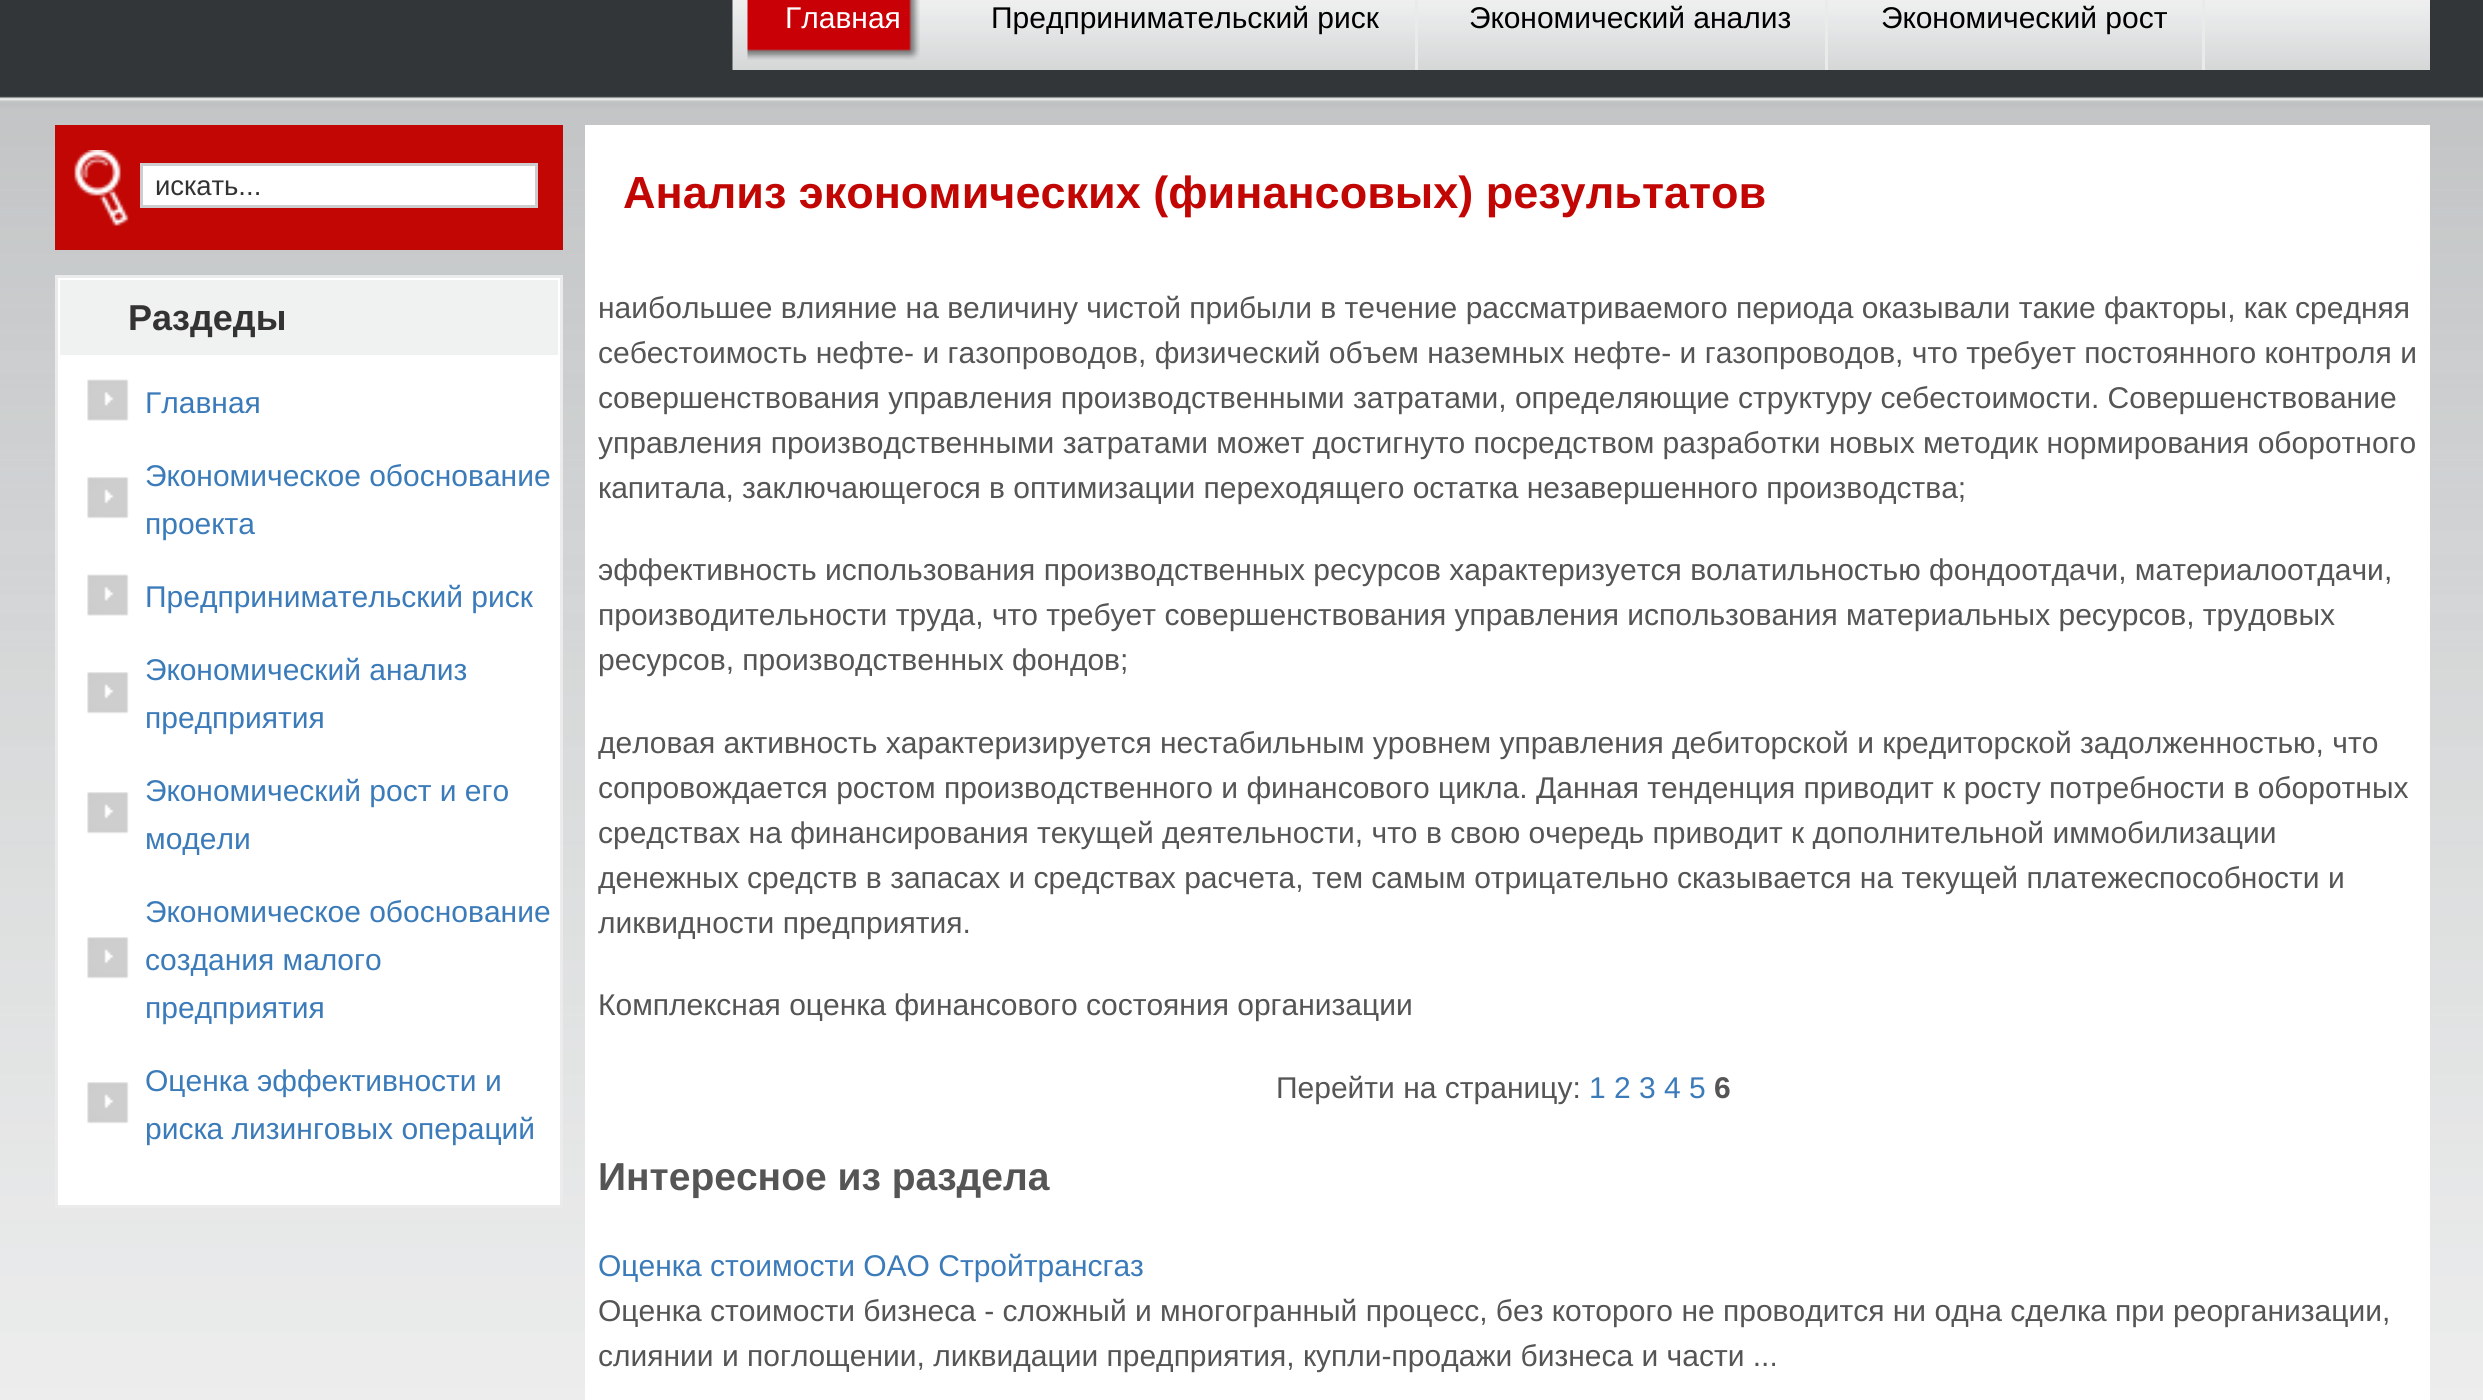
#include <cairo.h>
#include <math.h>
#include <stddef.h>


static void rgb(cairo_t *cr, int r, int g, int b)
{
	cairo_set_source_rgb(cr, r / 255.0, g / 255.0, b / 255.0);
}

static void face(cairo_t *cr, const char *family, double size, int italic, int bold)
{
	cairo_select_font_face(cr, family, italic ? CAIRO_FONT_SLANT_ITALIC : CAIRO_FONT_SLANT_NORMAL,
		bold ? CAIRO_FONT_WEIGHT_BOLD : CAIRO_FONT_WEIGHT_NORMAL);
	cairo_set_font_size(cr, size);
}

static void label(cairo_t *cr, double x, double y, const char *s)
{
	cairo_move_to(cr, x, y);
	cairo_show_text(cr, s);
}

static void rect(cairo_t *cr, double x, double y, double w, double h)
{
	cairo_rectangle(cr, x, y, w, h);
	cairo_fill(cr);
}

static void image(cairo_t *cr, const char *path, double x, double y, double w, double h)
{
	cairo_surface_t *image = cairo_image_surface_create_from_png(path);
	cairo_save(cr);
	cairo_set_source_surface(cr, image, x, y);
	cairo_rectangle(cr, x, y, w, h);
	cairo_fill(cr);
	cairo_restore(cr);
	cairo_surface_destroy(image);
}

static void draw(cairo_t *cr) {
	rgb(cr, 255, 255, 255);
	cairo_paint(cr);
	image(cr, "image0.png", 0, 0, 2483, 1400);
	image(cr, "image1.png", 732, 0, 1698, 70);
	image(cr, "image2.png", 747, 0, 173, 60);
	face(cr, "Liberation Sans", 30, 0, 0);
	rgb(cr, 255, 255, 255);
	label(cr, 785, 28, "Главная");
	rgb(cr, 234, 234, 234);
	rect(cr, 1415, 0, 3, 70);
	rgb(cr, 0, 0, 0);
	label(cr, 991, 28, "Предпринимательский риск");
	rgb(cr, 234, 234, 234);
	rect(cr, 1825, 0, 3, 70);
	rgb(cr, 0, 0, 0);
	label(cr, 1469, 28, "Экономический анализ");
	rgb(cr, 234, 234, 234);
	rect(cr, 2202, 0, 3, 70);
	rgb(cr, 0, 0, 0);
	label(cr, 1881, 28, "Экономический рост");
	rgb(cr, 194, 6, 4);
	rect(cr, 55, 125, 508, 125);
	image(cr, "image3.png", 74, 150, 55, 76);
	rgb(cr, 255, 255, 255);
	cairo_rectangle(cr, 141.5, 164.5, 395, 42);
	cairo_fill_preserve(cr);
	rgb(cr, 205, 204, 206);
	cairo_set_line_width(cr, 3);
	cairo_stroke(cr);
	face(cr, "Liberation Sans", 27.5, 0, 0);
	rgb(cr, 51, 51, 51);
	label(cr, 155, 195, "искать...");
	rgb(cr, 255, 255, 255);
	cairo_rectangle(cr, 56.5, 276.5, 505, 930);
	cairo_fill_preserve(cr);
	rgb(cr, 235, 235, 235);
	cairo_stroke(cr);
	rgb(cr, 240, 241, 241);
	rect(cr, 60, 280, 498, 75);
	face(cr, "Liberation Sans", 36, 0, 1);
	rgb(cr, 51, 51, 51);
	label(cr, 128, 330, "Раздеды");
	image(cr, "image4.png", 87, 379, 42, 42);
	face(cr, "Liberation Sans", 30, 0, 0);
	rgb(cr, 59, 123, 185);
	label(cr, 145, 413, "Главная");
	image(cr, "image5.png", 87, 477, 42, 42);
	label(cr, 145, 486, "Экономическое обоснование");
	label(cr, 145, 534, "проекта");
	image(cr, "image4.png", 87, 574, 42, 42);
	label(cr, 145, 607, "Предпринимательский риск");
	image(cr, "image5.png", 87, 672, 42, 42);
	label(cr, 145, 680, "Экономический анализ");
	label(cr, 145, 728, "предприятия");
	image(cr, "image5.png", 87, 792, 42, 42);
	label(cr, 145, 801, "Экономический рост и его");
	label(cr, 145, 849, "модели");
	image(cr, "image5.png", 87, 937, 42, 42);
	label(cr, 145, 922, "Экономическое обоснование");
	label(cr, 145, 970, "создания малого");
	label(cr, 145, 1018, "предприятия");
	image(cr, "image5.png", 87, 1082, 42, 42);
	label(cr, 145, 1091, "Оценка эффективности и");
	label(cr, 145, 1139, "риска лизинговых операций");
	rgb(cr, 255, 255, 255);
	rect(cr, 585, 125, 1845, 1275);
	face(cr, "Liberation Sans", 45, 0, 1);
	rgb(cr, 194, 6, 4);
	label(cr, 623, 208, "Анализ экономических (финансовых) результатов");
	face(cr, "Liberation Sans", 30, 0, 0);
	rgb(cr, 85, 85, 85);
	label(cr, 598, 318, "наибольшее влияние на величину чистой прибыли в течение рассматриваемого периода оказывали такие факторы, как средняя");
	label(cr, 598, 363, "себестоимость нефте- и газопроводов, физический объем наземных нефте- и газопроводов, что требует постоянного контроля и");
	label(cr, 598, 408, "совершенствования управления производственными затратами, определяющие структуру себестоимости. Совершенствование");
	label(cr, 598, 453, "управления производственными затратами может достигнуто посредством разработки новых методик нормирования оборотного");
	label(cr, 598, 498, "капитала, заключающегося в оптимизации переходящего остатка незавершенного производства;");
	label(cr, 598, 580, "эффективность использования производственных ресурсов характеризуется волатильностью фондоотдачи, материалоотдачи,");
	label(cr, 598, 625, "производительности труда, что требует совершенствования управления использования материальных ресурсов, трудовых");
	label(cr, 598, 670, "ресурсов, производственных фондов;");
	label(cr, 598, 753, "деловая активность характеризируется нестабильным уровнем управления дебиторской и кредиторской задолженностью, что");
	label(cr, 598, 798, "сопровождается ростом производственного и финансового цикла. Данная тенденция приводит к росту потребности в оборотных");
	label(cr, 598, 843, "средствах на финансирования текущей деятельности, что в свою очередь приводит к дополнительной иммобилизации");
	label(cr, 598, 888, "денежных средств в запасах и средствах расчета, тем самым отрицательно сказывается на текущей платежеспособности и");
	label(cr, 598, 933, "ликвидности предприятия.");
	label(cr, 598, 1015, "Комплексная оценка финансового состояния организации");
	label(cr, 1276, 1098, "Перейти на страницу:");
	rgb(cr, 59, 123, 185);
	label(cr, 1589, 1098, "1 2 3 4 5");
	face(cr, "Liberation Sans", 30, 0, 1);
	rgb(cr, 85, 85, 85);
	label(cr, 1714, 1098, "6");
	face(cr, "Liberation Sans", 39, 0, 1);
	label(cr, 598, 1190, "Интересное из раздела");
	face(cr, "Liberation Sans", 30, 0, 0);
	rgb(cr, 59, 123, 185);
	label(cr, 598, 1276, "Оценка стоимости ОАО Стройтрансгаз");
	rgb(cr, 85, 85, 85);
	label(cr, 598, 1321, "Оценка стоимости бизнеса - сложный и многогранный процесс, без которого не проводится ни одна сделка при реорганизации,");
	label(cr, 598, 1366, "слиянии и поглощении, ликвидации предприятия, купли-продажи бизнеса и части ...");
}

int main(void) {
	cairo_surface_t *surface = cairo_image_surface_create(CAIRO_FORMAT_RGB24, 2483, 1400);
	cairo_t *cr = cairo_create(surface);
	cairo_font_options_t *options = cairo_font_options_create();
	cairo_font_options_set_hint_metrics(options, CAIRO_HINT_METRICS_OFF);
	cairo_font_options_set_hint_style(options, CAIRO_HINT_STYLE_NONE);
	cairo_set_font_options(cr, options);
	cairo_set_miter_limit(cr, 4);
	draw(cr);
	cairo_surface_write_to_png(surface, "render.png");
	cairo_font_options_destroy(options);
	cairo_destroy(cr);
	cairo_surface_destroy(surface);
	return 0;
}
